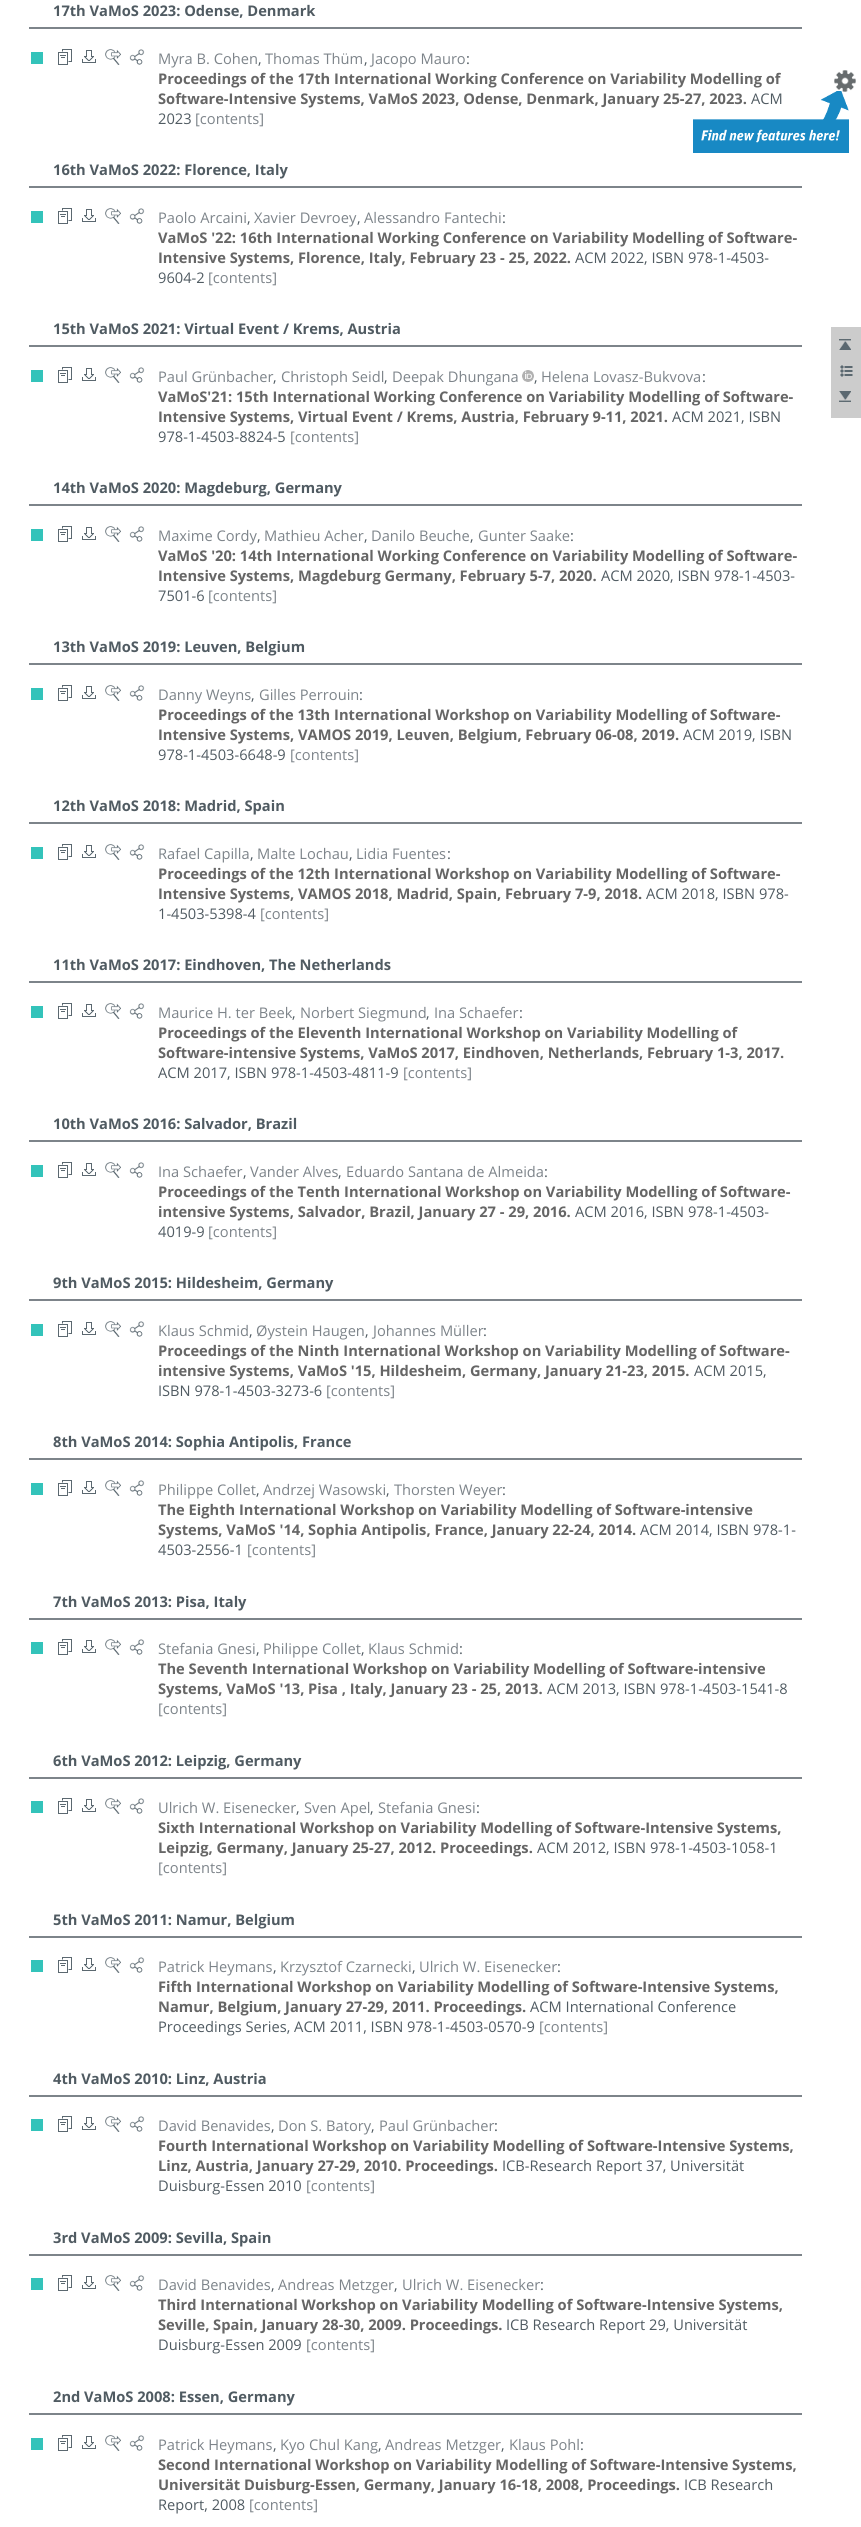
#include <cairo.h>
#include <math.h>
#include <stddef.h>


static void rgb(cairo_t *cr, int r, int g, int b)
{
	cairo_set_source_rgb(cr, r / 255.0, g / 255.0, b / 255.0);
}

static void face(cairo_t *cr, const char *family, double size, int italic, int bold)
{
	cairo_select_font_face(cr, family, italic ? CAIRO_FONT_SLANT_ITALIC : CAIRO_FONT_SLANT_NORMAL,
		bold ? CAIRO_FONT_WEIGHT_BOLD : CAIRO_FONT_WEIGHT_NORMAL);
	cairo_set_font_size(cr, size);
}

static void label(cairo_t *cr, double x, double y, const char *s)
{
	cairo_move_to(cr, x, y);
	cairo_show_text(cr, s);
}

static void rect(cairo_t *cr, double x, double y, double w, double h)
{
	cairo_rectangle(cr, x, y, w, h);
	cairo_fill(cr);
}

static void image(cairo_t *cr, const char *path, double x, double y, double w, double h)
{
	cairo_surface_t *image = cairo_image_surface_create_from_png(path);
	cairo_save(cr);
	cairo_set_source_surface(cr, image, x, y);
	cairo_rectangle(cr, x, y, w, h);
	cairo_fill(cr);
	cairo_restore(cr);
	cairo_surface_destroy(image);
}

static void draw(cairo_t *cr) {
	rgb(cr, 255, 255, 255);
	cairo_paint(cr);
	rgb(cr, 125, 132, 138);
	rect(cr, 29, 27, 773, 2);
	face(cr, "Open Sans", 14.65, 0, 1);
	rgb(cr, 80, 91, 98);
	label(cr, 53, 16, "17th VaMoS 2023: Odense, Denmark");
	rgb(cr, 51, 195, 186);
	rect(cr, 31, 52, 12, 12);
	image(cr, "image0.png", 58, 49, 14, 16);
	image(cr, "image1.png", 82, 50, 14, 13);
	image(cr, "image2.png", 105, 49, 16, 16);
	image(cr, "image3.png", 129, 49, 16, 16);
	face(cr, "Open Sans", 14.65, 0, 0);
	rgb(cr, 125, 132, 138);
	label(cr, 158, 64, "Myra B. Cohen");
	rgb(cr, 80, 91, 98);
	label(cr, 258, 64, ",");
	rgb(cr, 125, 132, 138);
	label(cr, 265, 64, "Thomas Thüm");
	rgb(cr, 80, 91, 98);
	label(cr, 364, 64, ",");
	rgb(cr, 125, 132, 138);
	label(cr, 371, 64, "Jacopo Mauro");
	rgb(cr, 80, 91, 98);
	label(cr, 466, 64, ":");
	face(cr, "Open Sans", 14.65, 0, 1);
	rgb(cr, 102, 102, 102);
	label(cr, 158, 84, "Proceedings of the 17th International Working Conference on Variability Modelling of");
	label(cr, 158, 104, "Software-Intensive Systems, VaMoS 2023, Odense, Denmark, January 25-27, 2023.");
	face(cr, "Open Sans", 14.65, 0, 0);
	rgb(cr, 80, 91, 98);
	label(cr, 751, 104, "ACM");
	label(cr, 158, 124, "2023");
	rgb(cr, 125, 132, 138);
	label(cr, 195, 124, "[contents]");
	image(cr, "image5.png", 693, 91, 156, 62);
	image(cr, "image4.png", 834, 70, 22, 22);
	rect(cr, 29, 186, 773, 2);
	face(cr, "Open Sans", 14.65, 0, 1);
	rgb(cr, 80, 91, 98);
	label(cr, 53, 175, "16th VaMoS 2022: Florence, Italy");
	rgb(cr, 51, 195, 186);
	rect(cr, 31, 211, 12, 12);
	image(cr, "image0.png", 58, 208, 14, 16);
	image(cr, "image1.png", 82, 209, 14, 13);
	image(cr, "image2.png", 105, 208, 16, 16);
	image(cr, "image3.png", 129, 208, 16, 16);
	face(cr, "Open Sans", 14.65, 0, 0);
	rgb(cr, 125, 132, 138);
	label(cr, 158, 223, "Paolo Arcaini");
	rgb(cr, 80, 91, 98);
	label(cr, 247, 223, ",");
	rgb(cr, 125, 132, 138);
	label(cr, 254, 223, "Xavier Devroey");
	rgb(cr, 80, 91, 98);
	label(cr, 357, 223, ",");
	rgb(cr, 125, 132, 138);
	label(cr, 364, 223, "Alessandro Fantechi");
	rgb(cr, 80, 91, 98);
	label(cr, 502, 223, ":");
	face(cr, "Open Sans", 14.65, 0, 1);
	rgb(cr, 102, 102, 102);
	label(cr, 158, 243, "VaMoS '22: 16th International Working Conference on Variability Modelling of Software-");
	label(cr, 158, 263, "Intensive Systems, Florence, Italy, February 23 - 25, 2022.");
	face(cr, "Open Sans", 14.65, 0, 0);
	rgb(cr, 80, 91, 98);
	label(cr, 575, 263, "ACM 2022, ISBN 978-1-4503-");
	label(cr, 158, 283, "9604-2");
	rgb(cr, 125, 132, 138);
	label(cr, 208, 283, "[contents]");
	rect(cr, 29, 345, 773, 2);
	face(cr, "Open Sans", 14.65, 0, 1);
	rgb(cr, 80, 91, 98);
	label(cr, 53, 334, "15th VaMoS 2021: Virtual Event / Krems, Austria");
	rgb(cr, 204, 204, 204);
	rect(cr, 831, 327, 30, 91);
	image(cr, "image6.png", 839, 339, 12, 11);
	image(cr, "image7.png", 840, 365, 13, 12);
	image(cr, "image8.png", 839, 391, 12, 11);
	rgb(cr, 51, 195, 186);
	rect(cr, 31, 370, 12, 12);
	image(cr, "image0.png", 58, 367, 14, 16);
	image(cr, "image1.png", 82, 368, 14, 13);
	image(cr, "image2.png", 105, 367, 16, 16);
	image(cr, "image3.png", 129, 367, 16, 16);
	face(cr, "Open Sans", 14.65, 0, 0);
	rgb(cr, 125, 132, 138);
	label(cr, 158, 382, "Paul Grünbacher");
	rgb(cr, 80, 91, 98);
	label(cr, 273, 382, ",");
	rgb(cr, 125, 132, 138);
	label(cr, 281, 382, "Christoph Seidl");
	rgb(cr, 80, 91, 98);
	label(cr, 384, 382, ",");
	rgb(cr, 125, 132, 138);
	label(cr, 392, 382, "Deepak Dhungana");
	image(cr, "image9.png", 522, 370, 12, 12);
	rgb(cr, 80, 91, 98);
	label(cr, 534, 382, ",");
	rgb(cr, 125, 132, 138);
	label(cr, 541, 382, "Helena Lovasz-Bukvova");
	rgb(cr, 80, 91, 98);
	label(cr, 702, 382, ":");
	face(cr, "Open Sans", 14.65, 0, 1);
	rgb(cr, 102, 102, 102);
	label(cr, 158, 402, "VaMoS'21: 15th International Working Conference on Variability Modelling of Software-");
	label(cr, 158, 422, "Intensive Systems, Virtual Event / Krems, Austria, February 9-11, 2021.");
	face(cr, "Open Sans", 14.65, 0, 0);
	rgb(cr, 80, 91, 98);
	label(cr, 672, 422, "ACM 2021, ISBN");
	label(cr, 158, 442, "978-1-4503-8824-5");
	rgb(cr, 125, 132, 138);
	label(cr, 290, 442, "[contents]");
	rect(cr, 29, 504, 773, 2);
	face(cr, "Open Sans", 14.65, 0, 1);
	rgb(cr, 80, 91, 98);
	label(cr, 53, 493, "14th VaMoS 2020: Magdeburg, Germany");
	rgb(cr, 51, 195, 186);
	rect(cr, 31, 529, 12, 12);
	image(cr, "image0.png", 58, 526, 14, 16);
	image(cr, "image1.png", 82, 527, 14, 13);
	image(cr, "image2.png", 105, 526, 16, 16);
	image(cr, "image3.png", 129, 526, 16, 16);
	face(cr, "Open Sans", 14.65, 0, 0);
	rgb(cr, 125, 132, 138);
	label(cr, 158, 541, "Maxime Cordy");
	rgb(cr, 80, 91, 98);
	label(cr, 257, 541, ",");
	rgb(cr, 125, 132, 138);
	label(cr, 264, 541, "Mathieu Acher");
	rgb(cr, 80, 91, 98);
	label(cr, 364, 541, ",");
	rgb(cr, 125, 132, 138);
	label(cr, 371, 541, "Danilo Beuche");
	rgb(cr, 80, 91, 98);
	label(cr, 470, 541, ",");
	rgb(cr, 125, 132, 138);
	label(cr, 478, 541, "Gunter Saake");
	rgb(cr, 80, 91, 98);
	label(cr, 570, 541, ":");
	face(cr, "Open Sans", 14.65, 0, 1);
	rgb(cr, 102, 102, 102);
	label(cr, 158, 561, "VaMoS '20: 14th International Working Conference on Variability Modelling of Software-");
	label(cr, 158, 581, "Intensive Systems, Magdeburg Germany, February 5-7, 2020.");
	face(cr, "Open Sans", 14.65, 0, 0);
	rgb(cr, 80, 91, 98);
	label(cr, 601, 581, "ACM 2020, ISBN 978-1-4503-");
	label(cr, 158, 601, "7501-6");
	rgb(cr, 125, 132, 138);
	label(cr, 208, 601, "[contents]");
	rect(cr, 29, 663, 773, 2);
	face(cr, "Open Sans", 14.65, 0, 1);
	rgb(cr, 80, 91, 98);
	label(cr, 53, 652, "13th VaMoS 2019: Leuven, Belgium");
	rgb(cr, 51, 195, 186);
	rect(cr, 31, 688, 12, 12);
	image(cr, "image0.png", 58, 685, 14, 16);
	image(cr, "image1.png", 82, 686, 14, 13);
	image(cr, "image2.png", 105, 685, 16, 16);
	image(cr, "image3.png", 129, 685, 16, 16);
	face(cr, "Open Sans", 14.65, 0, 0);
	rgb(cr, 125, 132, 138);
	label(cr, 158, 700, "Danny Weyns");
	rgb(cr, 80, 91, 98);
	label(cr, 251, 700, ",");
	rgb(cr, 125, 132, 138);
	label(cr, 259, 700, "Gilles Perrouin");
	rgb(cr, 80, 91, 98);
	label(cr, 359, 700, ":");
	face(cr, "Open Sans", 14.65, 0, 1);
	rgb(cr, 102, 102, 102);
	label(cr, 158, 720, "Proceedings of the 13th International Workshop on Variability Modelling of Software-");
	label(cr, 158, 740, "Intensive Systems, VAMOS 2019, Leuven, Belgium, February 06-08, 2019.");
	face(cr, "Open Sans", 14.65, 0, 0);
	rgb(cr, 80, 91, 98);
	label(cr, 683, 740, "ACM 2019, ISBN");
	label(cr, 158, 760, "978-1-4503-6648-9");
	rgb(cr, 125, 132, 138);
	label(cr, 290, 760, "[contents]");
	rect(cr, 29, 822, 773, 2);
	face(cr, "Open Sans", 14.65, 0, 1);
	rgb(cr, 80, 91, 98);
	label(cr, 53, 811, "12th VaMoS 2018: Madrid, Spain");
	rgb(cr, 51, 195, 186);
	rect(cr, 31, 847, 12, 12);
	image(cr, "image0.png", 58, 844, 14, 16);
	image(cr, "image1.png", 82, 845, 14, 13);
	image(cr, "image2.png", 105, 844, 16, 16);
	image(cr, "image3.png", 129, 844, 16, 16);
	face(cr, "Open Sans", 14.65, 0, 0);
	rgb(cr, 125, 132, 138);
	label(cr, 158, 859, "Rafael Capilla");
	rgb(cr, 80, 91, 98);
	label(cr, 250, 859, ",");
	rgb(cr, 125, 132, 138);
	label(cr, 257, 859, "Malte Lochau");
	rgb(cr, 80, 91, 98);
	label(cr, 349, 859, ",");
	rgb(cr, 125, 132, 138);
	label(cr, 356, 859, "Lidia Fuentes");
	rgb(cr, 80, 91, 98);
	label(cr, 447, 859, ":");
	face(cr, "Open Sans", 14.65, 0, 1);
	rgb(cr, 102, 102, 102);
	label(cr, 158, 879, "Proceedings of the 12th International Workshop on Variability Modelling of Software-");
	label(cr, 158, 899, "Intensive Systems, VAMOS 2018, Madrid, Spain, February 7-9, 2018.");
	face(cr, "Open Sans", 14.65, 0, 0);
	rgb(cr, 80, 91, 98);
	label(cr, 646, 899, "ACM 2018, ISBN 978-");
	label(cr, 158, 919, "1-4503-5398-4");
	rgb(cr, 125, 132, 138);
	label(cr, 260, 919, "[contents]");
	rect(cr, 29, 981, 773, 2);
	face(cr, "Open Sans", 14.65, 0, 1);
	rgb(cr, 80, 91, 98);
	label(cr, 53, 970, "11th VaMoS 2017: Eindhoven, The Netherlands");
	rgb(cr, 51, 195, 186);
	rect(cr, 31, 1006, 12, 12);
	image(cr, "image0.png", 58, 1003, 14, 16);
	image(cr, "image1.png", 82, 1004, 14, 13);
	image(cr, "image2.png", 105, 1003, 16, 16);
	image(cr, "image3.png", 129, 1003, 16, 16);
	face(cr, "Open Sans", 14.65, 0, 0);
	rgb(cr, 125, 132, 138);
	label(cr, 158, 1018, "Maurice H. ter Beek");
	rgb(cr, 80, 91, 98);
	label(cr, 292, 1018, ",");
	rgb(cr, 125, 132, 138);
	label(cr, 300, 1018, "Norbert Siegmund");
	rgb(cr, 80, 91, 98);
	label(cr, 426, 1018, ",");
	rgb(cr, 125, 132, 138);
	label(cr, 434, 1018, "Ina Schaefer");
	rgb(cr, 80, 91, 98);
	label(cr, 519, 1018, ":");
	face(cr, "Open Sans", 14.65, 0, 1);
	rgb(cr, 102, 102, 102);
	label(cr, 158, 1038, "Proceedings of the Eleventh International Workshop on Variability Modelling of");
	label(cr, 158, 1058, "Software-intensive Systems, VaMoS 2017, Eindhoven, Netherlands, February 1-3, 2017.");
	face(cr, "Open Sans", 14.65, 0, 0);
	rgb(cr, 80, 91, 98);
	label(cr, 158, 1078, "ACM 2017, ISBN 978-1-4503-4811-9");
	rgb(cr, 125, 132, 138);
	label(cr, 403, 1078, "[contents]");
	rect(cr, 29, 1140, 773, 2);
	face(cr, "Open Sans", 14.65, 0, 1);
	rgb(cr, 80, 91, 98);
	label(cr, 53, 1129, "10th VaMoS 2016: Salvador, Brazil");
	rgb(cr, 51, 195, 186);
	rect(cr, 31, 1165, 12, 12);
	image(cr, "image0.png", 58, 1162, 14, 16);
	image(cr, "image1.png", 82, 1163, 14, 13);
	image(cr, "image2.png", 105, 1162, 16, 16);
	image(cr, "image3.png", 129, 1162, 16, 16);
	face(cr, "Open Sans", 14.65, 0, 0);
	rgb(cr, 125, 132, 138);
	label(cr, 158, 1177, "Ina Schaefer");
	rgb(cr, 80, 91, 98);
	label(cr, 243, 1177, ",");
	rgb(cr, 125, 132, 138);
	label(cr, 250, 1177, "Vander Alves");
	rgb(cr, 80, 91, 98);
	label(cr, 338, 1177, ",");
	rgb(cr, 125, 132, 138);
	label(cr, 346, 1177, "Eduardo Santana de Almeida");
	rgb(cr, 80, 91, 98);
	label(cr, 544, 1177, ":");
	face(cr, "Open Sans", 14.65, 0, 1);
	rgb(cr, 102, 102, 102);
	label(cr, 158, 1197, "Proceedings of the Tenth International Workshop on Variability Modelling of Software-");
	label(cr, 158, 1217, "intensive Systems, Salvador, Brazil, January 27 - 29, 2016.");
	face(cr, "Open Sans", 14.65, 0, 0);
	rgb(cr, 80, 91, 98);
	label(cr, 575, 1217, "ACM 2016, ISBN 978-1-4503-");
	label(cr, 158, 1237, "4019-9");
	rgb(cr, 125, 132, 138);
	label(cr, 208, 1237, "[contents]");
	rect(cr, 29, 1299, 773, 2);
	face(cr, "Open Sans", 14.65, 0, 1);
	rgb(cr, 80, 91, 98);
	label(cr, 53, 1288, "9th VaMoS 2015: Hildesheim, Germany");
	rgb(cr, 51, 195, 186);
	rect(cr, 31, 1324, 12, 12);
	image(cr, "image0.png", 58, 1321, 14, 16);
	image(cr, "image1.png", 82, 1322, 14, 13);
	image(cr, "image2.png", 105, 1321, 16, 16);
	image(cr, "image3.png", 129, 1321, 16, 16);
	face(cr, "Open Sans", 14.65, 0, 0);
	rgb(cr, 125, 132, 138);
	label(cr, 158, 1336, "Klaus Schmid");
	rgb(cr, 80, 91, 98);
	label(cr, 249, 1336, ",");
	rgb(cr, 125, 132, 138);
	label(cr, 256, 1336, "Øystein Haugen");
	rgb(cr, 80, 91, 98);
	label(cr, 365, 1336, ",");
	rgb(cr, 125, 132, 138);
	label(cr, 373, 1336, "Johannes Müller");
	rgb(cr, 80, 91, 98);
	label(cr, 483, 1336, ":");
	face(cr, "Open Sans", 14.65, 0, 1);
	rgb(cr, 102, 102, 102);
	label(cr, 158, 1356, "Proceedings of the Ninth International Workshop on Variability Modelling of Software-");
	label(cr, 158, 1376, "intensive Systems, VaMoS '15, Hildesheim, Germany, January 21-23, 2015.");
	face(cr, "Open Sans", 14.65, 0, 0);
	rgb(cr, 80, 91, 98);
	label(cr, 694, 1376, "ACM 2015,");
	label(cr, 158, 1396, "ISBN 978-1-4503-3273-6");
	rgb(cr, 125, 132, 138);
	label(cr, 326, 1396, "[contents]");
	rect(cr, 29, 1458, 773, 2);
	face(cr, "Open Sans", 14.65, 0, 1);
	rgb(cr, 80, 91, 98);
	label(cr, 53, 1447, "8th VaMoS 2014: Sophia Antipolis, France");
	rgb(cr, 51, 195, 186);
	rect(cr, 31, 1483, 12, 12);
	image(cr, "image0.png", 58, 1480, 14, 16);
	image(cr, "image1.png", 82, 1481, 14, 13);
	image(cr, "image2.png", 105, 1480, 16, 16);
	image(cr, "image3.png", 129, 1480, 16, 16);
	face(cr, "Open Sans", 14.65, 0, 0);
	rgb(cr, 125, 132, 138);
	label(cr, 158, 1495, "Philippe Collet");
	rgb(cr, 80, 91, 98);
	label(cr, 256, 1495, ",");
	rgb(cr, 125, 132, 138);
	label(cr, 263, 1495, "Andrzej Wasowski");
	rgb(cr, 80, 91, 98);
	label(cr, 386, 1495, ",");
	rgb(cr, 125, 132, 138);
	label(cr, 394, 1495, "Thorsten Weyer");
	rgb(cr, 80, 91, 98);
	label(cr, 502, 1495, ":");
	face(cr, "Open Sans", 14.65, 0, 1);
	rgb(cr, 102, 102, 102);
	label(cr, 158, 1515, "The Eighth International Workshop on Variability Modelling of Software-intensive");
	label(cr, 158, 1535, "Systems, VaMoS '14, Sophia Antipolis, France, January 22-24, 2014.");
	face(cr, "Open Sans", 14.65, 0, 0);
	rgb(cr, 80, 91, 98);
	label(cr, 640, 1535, "ACM 2014, ISBN 978-1-");
	label(cr, 158, 1555, "4503-2556-1");
	rgb(cr, 125, 132, 138);
	label(cr, 247, 1555, "[contents]");
	rect(cr, 29, 1618, 773, 2);
	face(cr, "Open Sans", 14.65, 0, 1);
	rgb(cr, 80, 91, 98);
	label(cr, 53, 1607, "7th VaMoS 2013: Pisa, Italy");
	rgb(cr, 51, 195, 186);
	rect(cr, 31, 1642, 12, 12);
	image(cr, "image0.png", 58, 1639, 14, 16);
	image(cr, "image1.png", 82, 1640, 14, 13);
	image(cr, "image2.png", 105, 1639, 16, 16);
	image(cr, "image3.png", 129, 1639, 16, 16);
	face(cr, "Open Sans", 14.65, 0, 0);
	rgb(cr, 125, 132, 138);
	label(cr, 158, 1654, "Stefania Gnesi");
	rgb(cr, 80, 91, 98);
	label(cr, 256, 1654, ",");
	rgb(cr, 125, 132, 138);
	label(cr, 263, 1654, "Philippe Collet");
	rgb(cr, 80, 91, 98);
	label(cr, 361, 1654, ",");
	rgb(cr, 125, 132, 138);
	label(cr, 368, 1654, "Klaus Schmid");
	rgb(cr, 80, 91, 98);
	label(cr, 459, 1654, ":");
	face(cr, "Open Sans", 14.65, 0, 1);
	rgb(cr, 102, 102, 102);
	label(cr, 158, 1674, "The Seventh International Workshop on Variability Modelling of Software-intensive");
	label(cr, 158, 1694, "Systems, VaMoS '13, Pisa , Italy, January 23 - 25, 2013.");
	face(cr, "Open Sans", 14.65, 0, 0);
	rgb(cr, 80, 91, 98);
	label(cr, 547, 1694, "ACM 2013, ISBN 978-1-4503-1541-8");
	rgb(cr, 125, 132, 138);
	label(cr, 158, 1714, "[contents]");
	rect(cr, 29, 1777, 773, 2);
	face(cr, "Open Sans", 14.65, 0, 1);
	rgb(cr, 80, 91, 98);
	label(cr, 53, 1766, "6th VaMoS 2012: Leipzig, Germany");
	rgb(cr, 51, 195, 186);
	rect(cr, 31, 1801, 12, 12);
	image(cr, "image0.png", 58, 1798, 14, 16);
	image(cr, "image1.png", 82, 1799, 14, 13);
	image(cr, "image2.png", 105, 1798, 16, 16);
	image(cr, "image3.png", 129, 1798, 16, 16);
	face(cr, "Open Sans", 14.65, 0, 0);
	rgb(cr, 125, 132, 138);
	label(cr, 158, 1813, "Ulrich W. Eisenecker");
	rgb(cr, 80, 91, 98);
	label(cr, 296, 1813, ",");
	rgb(cr, 125, 132, 138);
	label(cr, 304, 1813, "Sven Apel");
	rgb(cr, 80, 91, 98);
	label(cr, 370, 1813, ",");
	rgb(cr, 125, 132, 138);
	label(cr, 378, 1813, "Stefania Gnesi");
	rgb(cr, 80, 91, 98);
	label(cr, 476, 1813, ":");
	face(cr, "Open Sans", 14.65, 0, 1);
	rgb(cr, 102, 102, 102);
	label(cr, 158, 1833, "Sixth International Workshop on Variability Modelling of Software-Intensive Systems,");
	label(cr, 158, 1853, "Leipzig, Germany, January 25-27, 2012. Proceedings.");
	face(cr, "Open Sans", 14.65, 0, 0);
	rgb(cr, 80, 91, 98);
	label(cr, 537, 1853, "ACM 2012, ISBN 978-1-4503-1058-1");
	rgb(cr, 125, 132, 138);
	label(cr, 158, 1873, "[contents]");
	rect(cr, 29, 1936, 773, 2);
	face(cr, "Open Sans", 14.65, 0, 1);
	rgb(cr, 80, 91, 98);
	label(cr, 53, 1925, "5th VaMoS 2011: Namur, Belgium");
	rgb(cr, 51, 195, 186);
	rect(cr, 31, 1960, 12, 12);
	image(cr, "image0.png", 58, 1957, 14, 16);
	image(cr, "image1.png", 82, 1958, 14, 13);
	image(cr, "image2.png", 105, 1957, 16, 16);
	image(cr, "image3.png", 129, 1957, 16, 16);
	face(cr, "Open Sans", 14.65, 0, 0);
	rgb(cr, 125, 132, 138);
	label(cr, 158, 1972, "Patrick Heymans");
	rgb(cr, 80, 91, 98);
	label(cr, 273, 1972, ",");
	rgb(cr, 125, 132, 138);
	label(cr, 280, 1972, "Krzysztof Czarnecki");
	rgb(cr, 80, 91, 98);
	label(cr, 412, 1972, ",");
	rgb(cr, 125, 132, 138);
	label(cr, 419, 1972, "Ulrich W. Eisenecker");
	rgb(cr, 80, 91, 98);
	label(cr, 557, 1972, ":");
	face(cr, "Open Sans", 14.65, 0, 1);
	rgb(cr, 102, 102, 102);
	label(cr, 158, 1992, "Fifth International Workshop on Variability Modelling of Software-Intensive Systems,");
	label(cr, 158, 2012, "Namur, Belgium, January 27-29, 2011. Proceedings.");
	face(cr, "Open Sans", 14.65, 0, 0);
	rgb(cr, 80, 91, 98);
	label(cr, 530, 2012, "ACM International Conference");
	label(cr, 158, 2032, "Proceedings Series, ACM 2011, ISBN 978-1-4503-0570-9");
	rgb(cr, 125, 132, 138);
	label(cr, 539, 2032, "[contents]");
	rect(cr, 29, 2095, 773, 2);
	face(cr, "Open Sans", 14.65, 0, 1);
	rgb(cr, 80, 91, 98);
	label(cr, 53, 2084, "4th VaMoS 2010: Linz, Austria");
	rgb(cr, 51, 195, 186);
	rect(cr, 31, 2119, 12, 12);
	image(cr, "image0.png", 58, 2116, 14, 16);
	image(cr, "image1.png", 82, 2117, 14, 13);
	image(cr, "image2.png", 105, 2116, 16, 16);
	image(cr, "image3.png", 129, 2116, 16, 16);
	face(cr, "Open Sans", 14.65, 0, 0);
	rgb(cr, 125, 132, 138);
	label(cr, 158, 2131, "David Benavides");
	rgb(cr, 80, 91, 98);
	label(cr, 271, 2131, ",");
	rgb(cr, 125, 132, 138);
	label(cr, 278, 2131, "Don S. Batory");
	rgb(cr, 80, 91, 98);
	label(cr, 371, 2131, ",");
	rgb(cr, 125, 132, 138);
	label(cr, 379, 2131, "Paul Grünbacher");
	rgb(cr, 80, 91, 98);
	label(cr, 494, 2131, ":");
	face(cr, "Open Sans", 14.65, 0, 1);
	rgb(cr, 102, 102, 102);
	label(cr, 158, 2151, "Fourth International Workshop on Variability Modelling of Software-Intensive Systems,");
	label(cr, 158, 2171, "Linz, Austria, January 27-29, 2010. Proceedings.");
	face(cr, "Open Sans", 14.65, 0, 0);
	rgb(cr, 80, 91, 98);
	label(cr, 502, 2171, "ICB-Research Report 37, Universität");
	label(cr, 158, 2191, "Duisburg-Essen 2010");
	rgb(cr, 125, 132, 138);
	label(cr, 306, 2191, "[contents]");
	rect(cr, 29, 2254, 773, 2);
	face(cr, "Open Sans", 14.65, 0, 1);
	rgb(cr, 80, 91, 98);
	label(cr, 53, 2243, "3rd VaMoS 2009: Sevilla, Spain");
	rgb(cr, 51, 195, 186);
	rect(cr, 31, 2278, 12, 12);
	image(cr, "image0.png", 58, 2275, 14, 16);
	image(cr, "image1.png", 82, 2276, 14, 13);
	image(cr, "image2.png", 105, 2275, 16, 16);
	image(cr, "image3.png", 129, 2275, 16, 16);
	face(cr, "Open Sans", 14.65, 0, 0);
	rgb(cr, 125, 132, 138);
	label(cr, 158, 2290, "David Benavides");
	rgb(cr, 80, 91, 98);
	label(cr, 271, 2290, ",");
	rgb(cr, 125, 132, 138);
	label(cr, 278, 2290, "Andreas Metzger");
	rgb(cr, 80, 91, 98);
	label(cr, 394, 2290, ",");
	rgb(cr, 125, 132, 138);
	label(cr, 402, 2290, "Ulrich W. Eisenecker");
	rgb(cr, 80, 91, 98);
	label(cr, 540, 2290, ":");
	face(cr, "Open Sans", 14.65, 0, 1);
	rgb(cr, 102, 102, 102);
	label(cr, 158, 2310, "Third International Workshop on Variability Modelling of Software-Intensive Systems,");
	label(cr, 158, 2330, "Seville, Spain, January 28-30, 2009. Proceedings.");
	face(cr, "Open Sans", 14.65, 0, 0);
	rgb(cr, 80, 91, 98);
	label(cr, 506, 2330, "ICB Research Report 29, Universität");
	label(cr, 158, 2350, "Duisburg-Essen 2009");
	rgb(cr, 125, 132, 138);
	label(cr, 306, 2350, "[contents]");
	rect(cr, 29, 2413, 773, 2);
	face(cr, "Open Sans", 14.65, 0, 1);
	rgb(cr, 80, 91, 98);
	label(cr, 53, 2402, "2nd VaMoS 2008: Essen, Germany");
	rgb(cr, 51, 195, 186);
	rect(cr, 31, 2438, 12, 12);
	image(cr, "image0.png", 58, 2435, 14, 16);
	image(cr, "image1.png", 82, 2436, 14, 13);
	image(cr, "image2.png", 105, 2435, 16, 16);
	image(cr, "image3.png", 129, 2435, 16, 16);
	face(cr, "Open Sans", 14.65, 0, 0);
	rgb(cr, 125, 132, 138);
	label(cr, 158, 2450, "Patrick Heymans");
	rgb(cr, 80, 91, 98);
	label(cr, 273, 2450, ",");
	rgb(cr, 125, 132, 138);
	label(cr, 280, 2450, "Kyo Chul Kang");
	rgb(cr, 80, 91, 98);
	label(cr, 378, 2450, ",");
	rgb(cr, 125, 132, 138);
	label(cr, 385, 2450, "Andreas Metzger");
	rgb(cr, 80, 91, 98);
	label(cr, 501, 2450, ",");
	rgb(cr, 125, 132, 138);
	label(cr, 509, 2450, "Klaus Pohl");
	rgb(cr, 80, 91, 98);
	label(cr, 580, 2450, ":");
	face(cr, "Open Sans", 14.65, 0, 1);
	rgb(cr, 102, 102, 102);
	label(cr, 158, 2470, "Second International Workshop on Variability Modelling of Software-Intensive Systems,");
	label(cr, 158, 2490, "Universität Duisburg-Essen, Germany, January 16-18, 2008, Proceedings.");
	face(cr, "Open Sans", 14.65, 0, 0);
	rgb(cr, 80, 91, 98);
	label(cr, 684, 2490, "ICB Research");
	label(cr, 158, 2510, "Report, 2008");
	rgb(cr, 125, 132, 138);
	label(cr, 249, 2510, "[contents]");
}

int main(void) {
	cairo_surface_t *surface = cairo_image_surface_create(CAIRO_FORMAT_RGB24, 861, 2527);
	cairo_t *cr = cairo_create(surface);
	cairo_font_options_t *options = cairo_font_options_create();
	cairo_font_options_set_hint_metrics(options, CAIRO_HINT_METRICS_OFF);
	cairo_font_options_set_hint_style(options, CAIRO_HINT_STYLE_NONE);
	cairo_set_font_options(cr, options);
	cairo_set_miter_limit(cr, 4);
	draw(cr);
	cairo_surface_write_to_png(surface, "render.png");
	cairo_font_options_destroy(options);
	cairo_destroy(cr);
	cairo_surface_destroy(surface);
	return 0;
}
